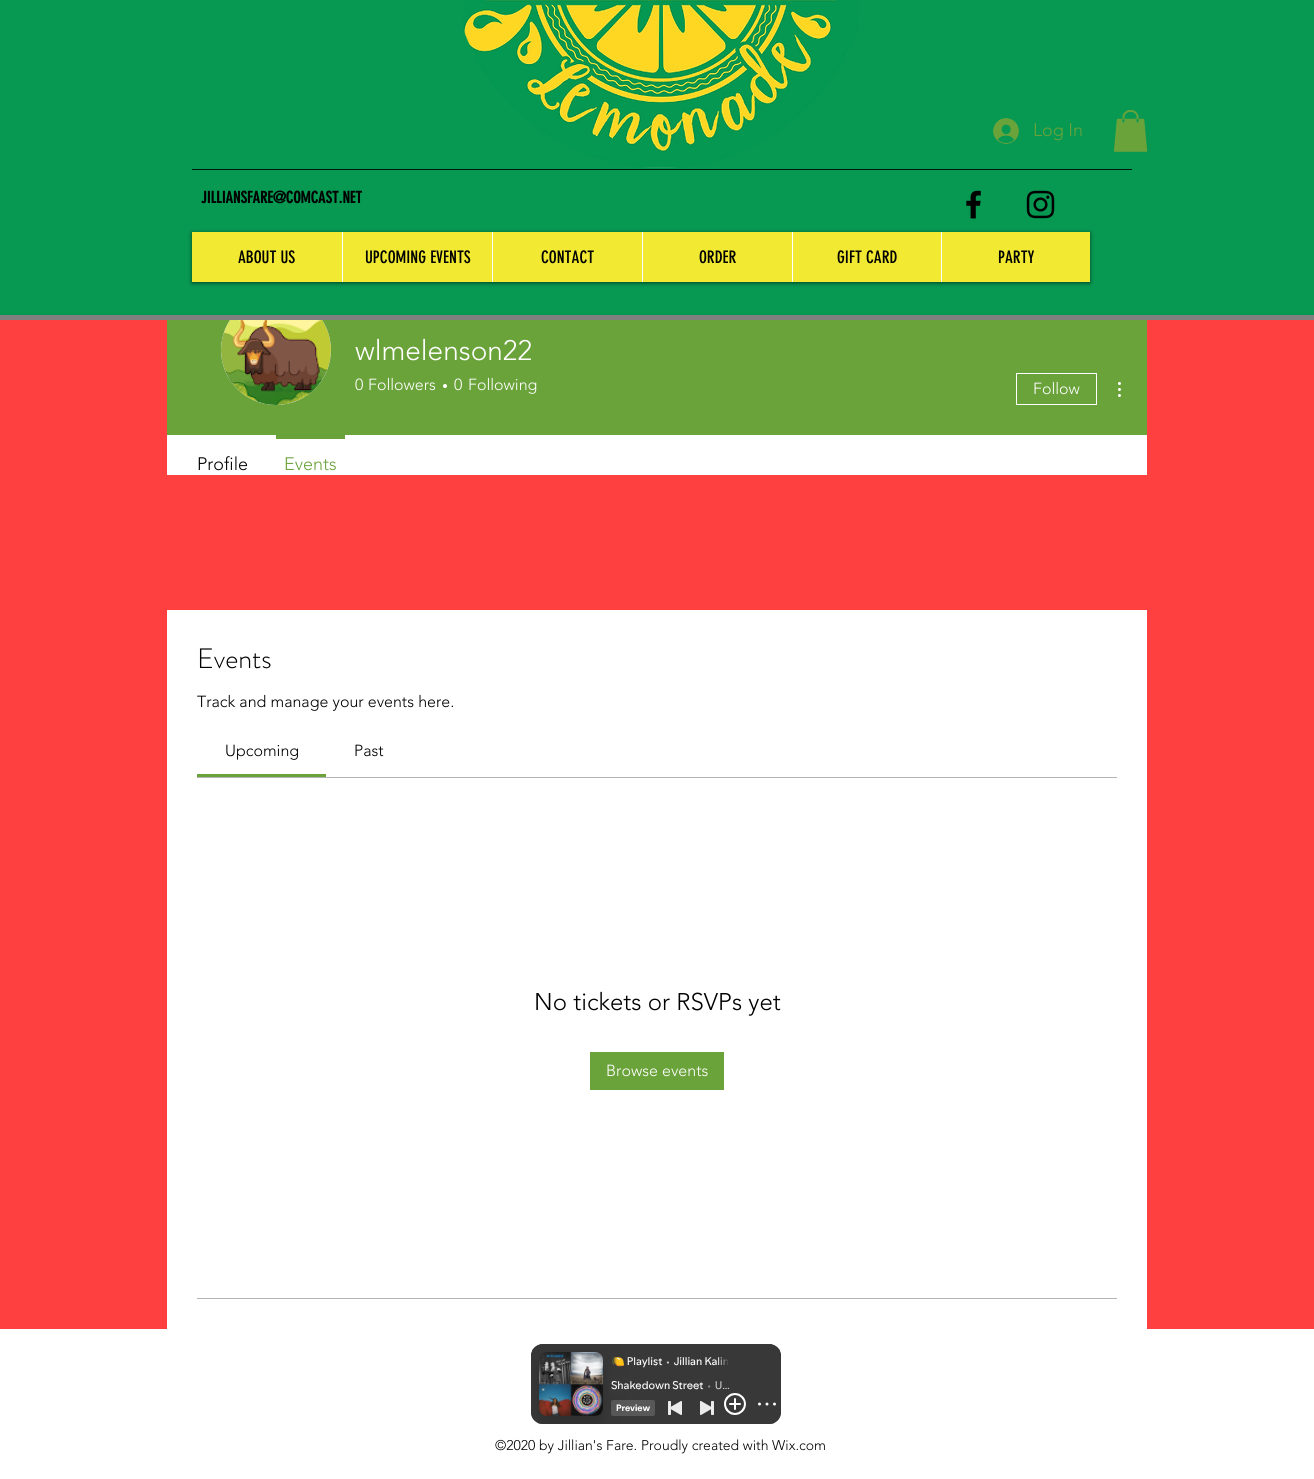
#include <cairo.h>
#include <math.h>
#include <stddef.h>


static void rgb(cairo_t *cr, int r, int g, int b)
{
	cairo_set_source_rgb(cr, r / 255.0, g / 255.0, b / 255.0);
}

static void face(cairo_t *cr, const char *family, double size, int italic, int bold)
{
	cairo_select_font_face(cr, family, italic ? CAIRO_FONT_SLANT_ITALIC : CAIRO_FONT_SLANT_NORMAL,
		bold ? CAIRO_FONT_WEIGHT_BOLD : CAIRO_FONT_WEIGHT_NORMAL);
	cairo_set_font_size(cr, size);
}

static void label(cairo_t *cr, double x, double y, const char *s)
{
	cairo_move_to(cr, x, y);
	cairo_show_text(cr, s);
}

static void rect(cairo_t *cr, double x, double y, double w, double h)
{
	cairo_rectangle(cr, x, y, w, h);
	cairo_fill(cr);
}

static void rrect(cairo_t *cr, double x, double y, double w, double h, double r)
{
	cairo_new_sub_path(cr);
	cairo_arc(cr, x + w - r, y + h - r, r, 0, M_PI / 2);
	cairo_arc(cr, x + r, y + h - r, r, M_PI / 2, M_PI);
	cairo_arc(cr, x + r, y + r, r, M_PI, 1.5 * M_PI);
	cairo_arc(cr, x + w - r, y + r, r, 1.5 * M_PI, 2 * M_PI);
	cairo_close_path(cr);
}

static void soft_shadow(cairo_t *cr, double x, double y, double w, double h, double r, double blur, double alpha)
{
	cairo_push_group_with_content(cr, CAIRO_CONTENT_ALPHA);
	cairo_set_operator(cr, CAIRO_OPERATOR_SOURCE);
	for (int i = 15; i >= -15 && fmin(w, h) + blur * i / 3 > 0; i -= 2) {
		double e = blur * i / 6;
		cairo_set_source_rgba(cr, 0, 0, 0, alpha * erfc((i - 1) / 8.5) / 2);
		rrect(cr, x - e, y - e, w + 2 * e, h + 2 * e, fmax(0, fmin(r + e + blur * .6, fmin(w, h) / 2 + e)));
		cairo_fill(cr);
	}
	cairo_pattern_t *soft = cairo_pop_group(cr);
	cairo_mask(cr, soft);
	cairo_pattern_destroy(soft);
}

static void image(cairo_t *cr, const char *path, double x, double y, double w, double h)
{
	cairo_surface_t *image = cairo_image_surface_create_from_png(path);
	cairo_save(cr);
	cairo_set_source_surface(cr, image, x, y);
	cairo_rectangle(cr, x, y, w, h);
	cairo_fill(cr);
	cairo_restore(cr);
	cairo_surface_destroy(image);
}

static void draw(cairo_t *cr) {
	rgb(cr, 255, 64, 64);
	cairo_paint(cr);
	rgb(cr, 107, 163, 59);
	rect(cr, 167, 320, 980, 115);
	rgb(cr, 216, 216, 216);
	cairo_arc(cr, 276, 350, 55, 0, 2 * M_PI);
	cairo_fill(cr);
	rgb(cr, 128, 128, 128);
	rect(cr, 0, 315, 1314, 5);
	rgb(cr, 7, 152, 82);
	rect(cr, 0, 0, 1314, 315);
	image(cr, "image0.png", 463, 0, 395, 168);
	image(cr, "image1.png", 993, 118, 26, 26);
	face(cr, "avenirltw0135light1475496 Light", 18, 0, 0);
	rgb(cr, 107, 163, 59);
	label(cr, 1033, 136, "Log In");
	image(cr, "image2.png", 1113, 110, 35, 42);
	rgb(cr, 1, 23, 12);
	rect(cr, 192, 169, 940, 1);
	face(cr, "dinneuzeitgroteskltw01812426", 16, 0, 1);
	rgb(cr, 0, 0, 0);
	label(cr, 201, 203, "JILLIANSFARE@COMCAST.NET");
	image(cr, "image3.png", 966, 190, 15, 29);
	image(cr, "image4.png", 1026, 190, 29, 29);
	rgb(cr, 0, 0, 0);
	soft_shadow(cr, 192, 233, 898, 50, 0, 2, 0.6);
	rgb(cr, 242, 233, 51);
	rect(cr, 192, 232, 898, 50);
	face(cr, "dinneuzeitgroteskltw01812426", 17, 0, 0);
	rgb(cr, 0, 0, 0);
	label(cr, 238, 263, "ABOUT US");
	rgb(cr, 255, 255, 255);
	rect(cr, 342, 232, 1, 50);
	rgb(cr, 0, 0, 0);
	label(cr, 365, 263, "UPCOMING EVENTS");
	rgb(cr, 255, 255, 255);
	rect(cr, 492, 232, 1, 50);
	rgb(cr, 0, 0, 0);
	label(cr, 541, 263, "CONTACT");
	rgb(cr, 255, 255, 255);
	rect(cr, 642, 232, 1, 50);
	rgb(cr, 0, 0, 0);
	label(cr, 699, 263, "ORDER");
	rgb(cr, 255, 255, 255);
	rect(cr, 792, 232, 1, 50);
	rgb(cr, 0, 0, 0);
	label(cr, 837, 263, "GIFT CARD");
	rgb(cr, 255, 255, 255);
	rect(cr, 941, 232, 1, 50);
	rgb(cr, 0, 0, 0);
	label(cr, 998, 263, "PARTY");
	image(cr, "image5.png", 221, 320, 110, 85);
	face(cr, "avenirltw0135light1475496 Light", 28, 0, 0);
	rgb(cr, 255, 255, 255);
	label(cr, 355, 360, "wlmelenson22");
	face(cr, "avenirltw0135light1475496 Light", 16, 0, 0);
	label(cr, 355, 390, "0");
	label(cr, 368, 390, "Followers");
	cairo_new_path(cr);
	cairo_arc(cr, 445, 386, 2, 0, 2 * M_PI);
	cairo_fill(cr);
	label(cr, 454, 390, "0");
	label(cr, 468, 390, "Following");
	cairo_rectangle(cr, 1016.5, 373.5, 80, 31);
	cairo_set_line_width(cr, 1);
	cairo_stroke(cr);
	label(cr, 1033, 394, "Follow");
	image(cr, "image6.png", 1118, 382, 3, 15);
	rect(cr, 167, 435, 980, 40);
	face(cr, "avenirltw0135light1475496 Light", 18, 0, 0);
	rgb(cr, 0, 0, 0);
	label(cr, 197, 470, "Profile");
	rgb(cr, 107, 163, 59);
	rect(cr, 276, 435, 69, 4);
	label(cr, 284, 470, "Events");
	rgb(cr, 255, 255, 255);
	rect(cr, 167, 610, 980, 719);
	face(cr, "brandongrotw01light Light", 28, 0, 0);
	rgb(cr, 0, 0, 0);
	label(cr, 197, 668, "Events");
	face(cr, "avenirltw0135light1475496 Light", 16, 0, 0);
	label(cr, 197, 707, "Track and manage your events here.");
	rgb(cr, 107, 163, 59);
	rect(cr, 197, 774, 129, 3);
	rgb(cr, 0, 0, 0);
	label(cr, 225, 756, "Upcoming");
	label(cr, 354, 756, "Past");
	rgb(cr, 179, 179, 179);
	rect(cr, 197, 777, 920, 1);
	face(cr, "avenirltw0135light1475496 Light", 24, 0, 0);
	rgb(cr, 0, 0, 0);
	label(cr, 534, 1010, "No tickets or RSVPs yet");
	rgb(cr, 107, 163, 59);
	rect(cr, 590, 1052, 134, 38);
	face(cr, "avenirltw0135light1475496 Light", 16, 0, 0);
	rgb(cr, 255, 255, 255);
	label(cr, 606, 1076, "Browse events");
	rgb(cr, 179, 179, 179);
	rect(cr, 197, 1298, 920, 1);
	rgb(cr, 255, 255, 255);
	rect(cr, 0, 1329, 1314, 150);
	image(cr, "image7.png", 531, 1344, 250, 80);
	face(cr, "avenirltw0135light1475496 Light", 14, 0, 0);
	rgb(cr, 0, 0, 0);
	label(cr, 495, 1450, "©2020 by Jillian's Fare. Proudly created with Wix.com");
}

int main(void) {
	cairo_surface_t *surface = cairo_image_surface_create(CAIRO_FORMAT_RGB24, 1314, 1479);
	cairo_t *cr = cairo_create(surface);
	cairo_font_options_t *options = cairo_font_options_create();
	cairo_font_options_set_hint_metrics(options, CAIRO_HINT_METRICS_OFF);
	cairo_font_options_set_hint_style(options, CAIRO_HINT_STYLE_NONE);
	cairo_set_font_options(cr, options);
	cairo_set_miter_limit(cr, 4);
	draw(cr);
	cairo_surface_write_to_png(surface, "render.png");
	cairo_font_options_destroy(options);
	cairo_destroy(cr);
	cairo_surface_destroy(surface);
	return 0;
}
